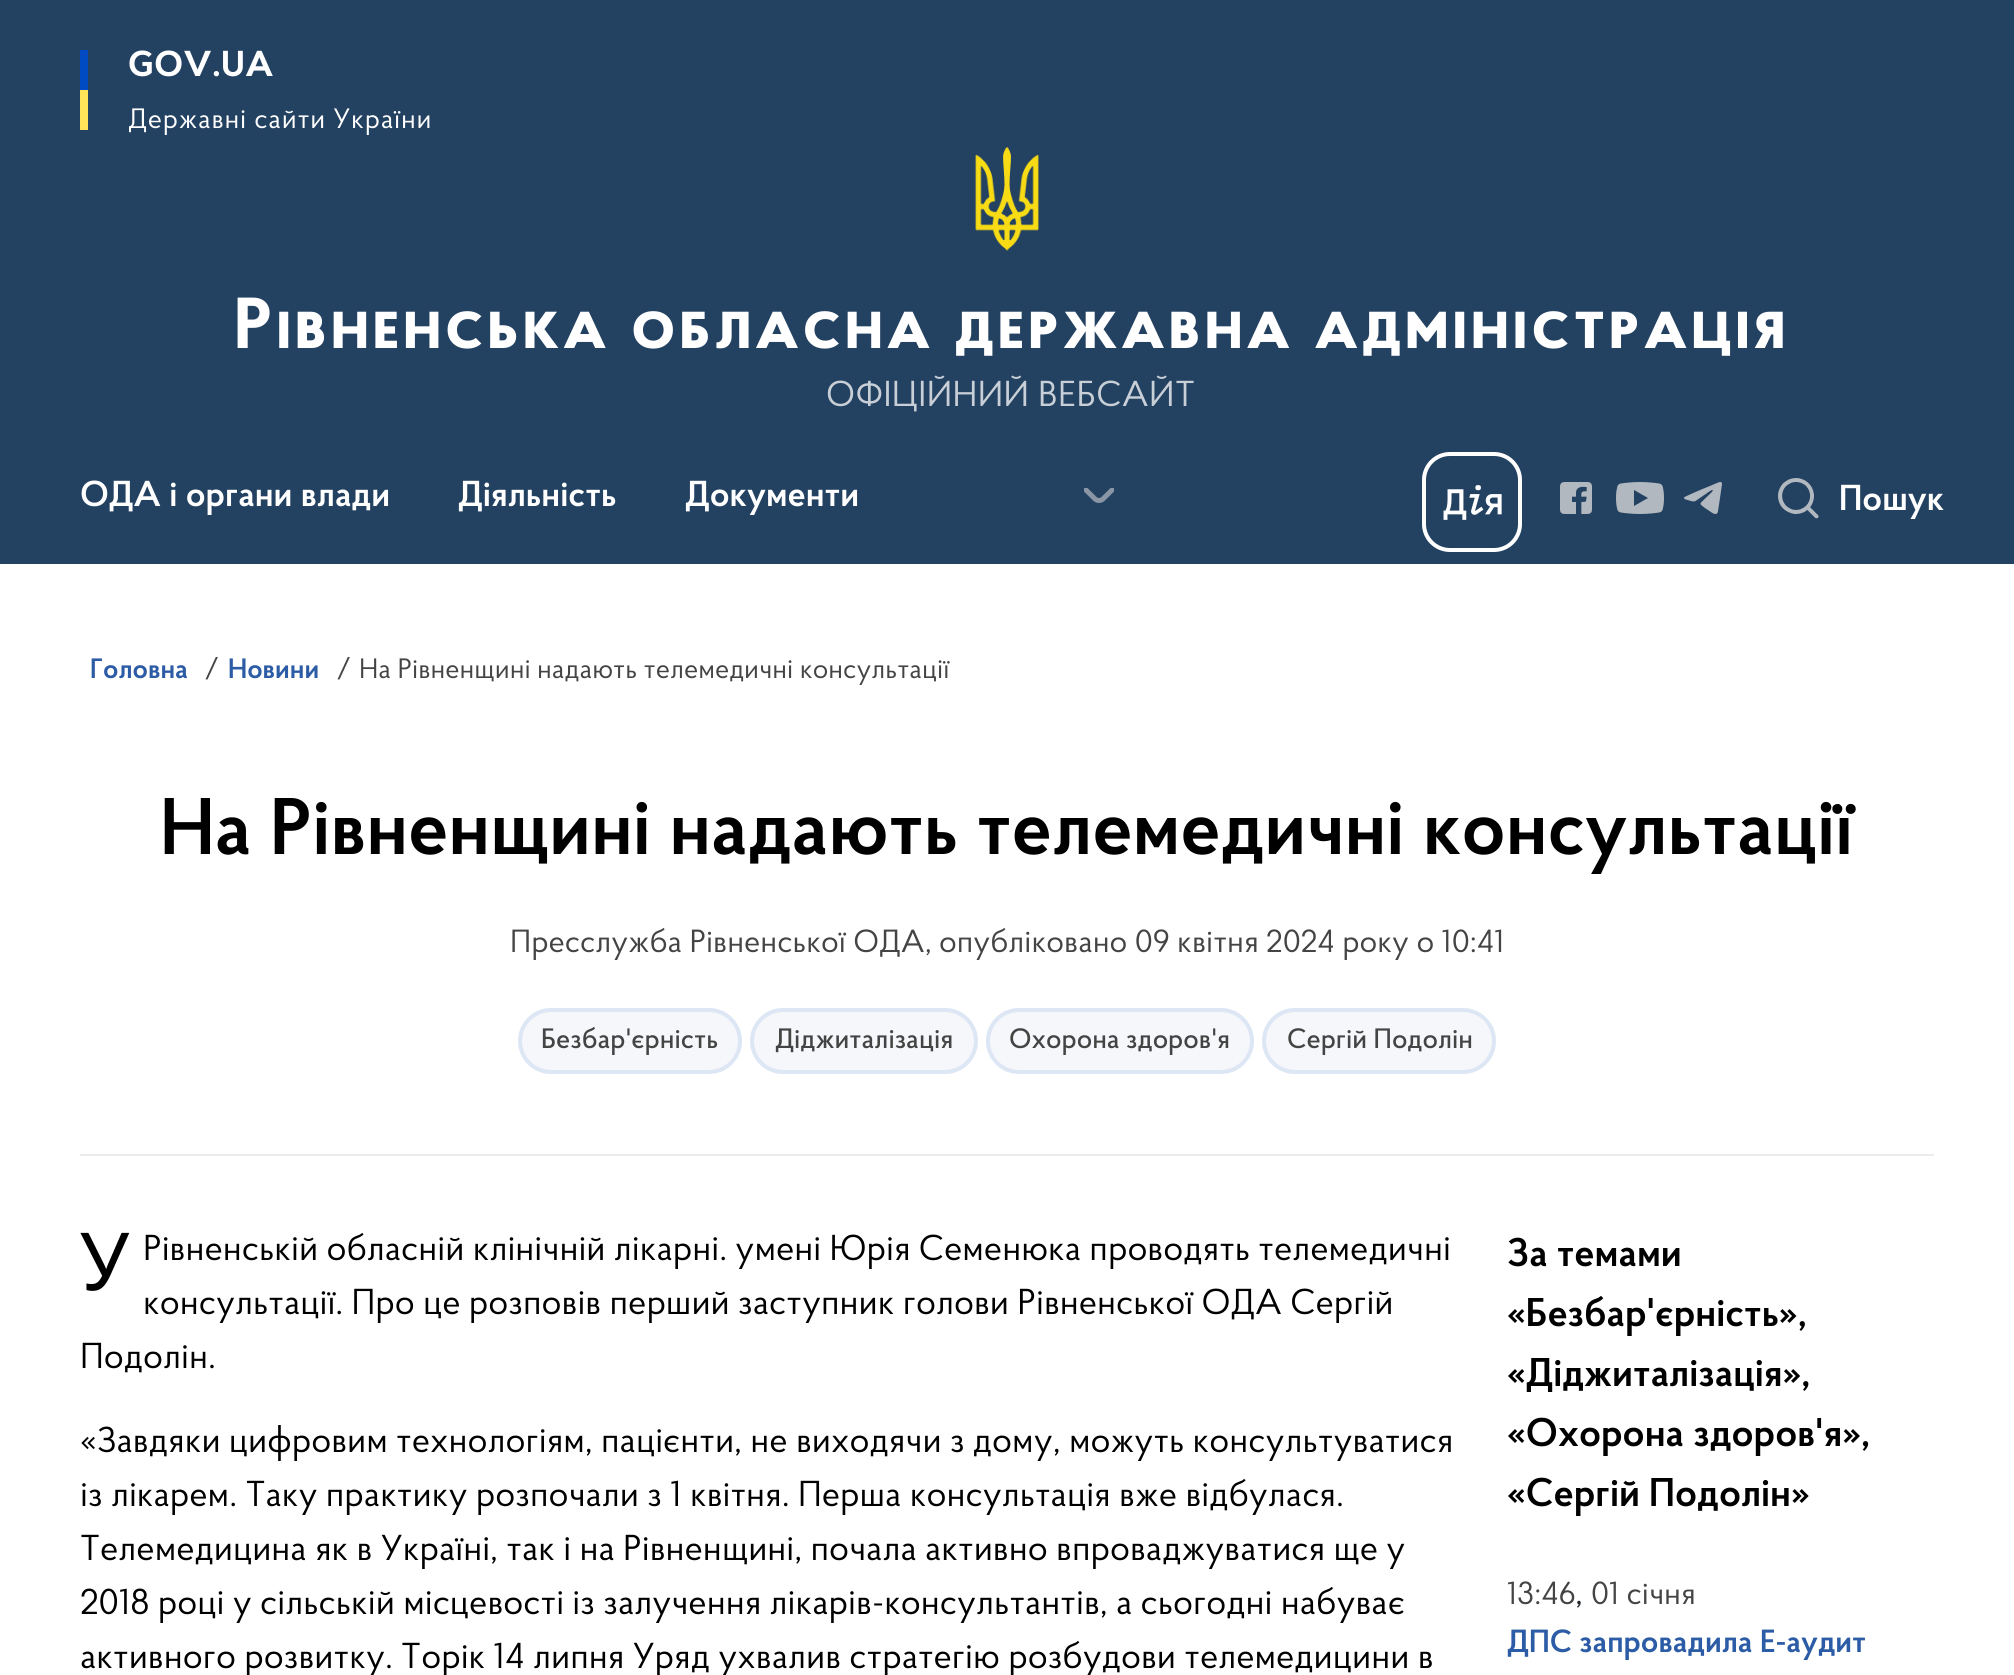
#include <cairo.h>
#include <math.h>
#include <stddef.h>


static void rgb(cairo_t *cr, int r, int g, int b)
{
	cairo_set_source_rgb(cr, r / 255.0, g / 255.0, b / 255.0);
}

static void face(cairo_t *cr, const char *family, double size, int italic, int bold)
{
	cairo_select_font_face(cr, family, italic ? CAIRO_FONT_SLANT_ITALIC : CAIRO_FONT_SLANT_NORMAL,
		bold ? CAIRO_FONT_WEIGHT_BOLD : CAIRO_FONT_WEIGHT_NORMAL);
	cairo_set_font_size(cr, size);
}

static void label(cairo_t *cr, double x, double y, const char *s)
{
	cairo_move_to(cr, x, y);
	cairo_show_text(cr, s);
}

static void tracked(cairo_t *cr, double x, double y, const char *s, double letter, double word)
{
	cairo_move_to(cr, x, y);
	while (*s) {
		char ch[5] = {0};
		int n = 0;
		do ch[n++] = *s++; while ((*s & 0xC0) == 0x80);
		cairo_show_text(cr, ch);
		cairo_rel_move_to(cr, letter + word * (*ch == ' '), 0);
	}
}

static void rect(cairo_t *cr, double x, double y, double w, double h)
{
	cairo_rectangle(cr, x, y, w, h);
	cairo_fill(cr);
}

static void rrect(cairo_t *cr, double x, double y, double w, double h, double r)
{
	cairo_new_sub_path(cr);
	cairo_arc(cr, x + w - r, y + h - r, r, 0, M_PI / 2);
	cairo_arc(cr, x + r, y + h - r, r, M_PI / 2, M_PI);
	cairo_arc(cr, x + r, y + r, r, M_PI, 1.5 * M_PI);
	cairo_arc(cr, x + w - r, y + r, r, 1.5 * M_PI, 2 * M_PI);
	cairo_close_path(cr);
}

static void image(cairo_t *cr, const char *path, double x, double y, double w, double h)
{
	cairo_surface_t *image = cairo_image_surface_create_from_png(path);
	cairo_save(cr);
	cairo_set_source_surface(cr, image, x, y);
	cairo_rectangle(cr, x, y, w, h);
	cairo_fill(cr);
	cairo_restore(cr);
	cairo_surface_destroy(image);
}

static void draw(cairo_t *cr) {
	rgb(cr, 255, 255, 255);
	cairo_paint(cr);
	rgb(cr, 35, 65, 97);
	rect(cr, 0, 0, 2014, 564);
	rgb(cr, 0, 75, 193);
	rect(cr, 80, 50, 8, 40);
	rgb(cr, 255, 227, 88);
	rect(cr, 80, 90, 8, 40);
	face(cr, "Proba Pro", 36, 0, 1);
	rgb(cr, 255, 255, 255);
	tracked(cr, 128, 76, "GOV.UA", 0.75, 0);
	face(cr, "Proba Pro", 28, 0, 0);
	tracked(cr, 128, 128, "Державні сайти України", 0.75, 0);
	image(cr, "image0.png", 975, 147, 64, 104);
	face(cr, "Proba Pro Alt", 72, 0, 1);
	tracked(cr, 234, 348, "Рівненська обласна державна адміністрація", 4, 0);
	face(cr, "Proba Pro", 36, 0, 0);
	rgb(cr, 200, 207, 215);
	tracked(cr, 826, 406, "ОФІЦІЙНИЙ ВЕБСАЙТ", 0.4, 0);
	face(cr, "Proba Pro SemiBold", 36, 0, 0);
	rgb(cr, 255, 255, 255);
	label(cr, 80, 506, "ОДА і органи влади");
	label(cr, 458, 506, "Діяльність");
	label(cr, 685, 506, "Документи");
	image(cr, "image1.png", 1084, 488, 30, 15);
	image(cr, "image2.png", 1443, 485, 59, 35);
	rrect(cr, 1424, 454, 96, 96, 26);
	cairo_set_line_width(cr, 4);
	cairo_stroke(cr);
	image(cr, "image3.png", 1560, 482, 32, 32);
	image(cr, "image4.png", 1616, 482, 48, 32);
	image(cr, "image5.png", 1684, 482, 38, 32);
	image(cr, "image6.png", 1778, 478, 41, 41);
	label(cr, 1839, 510, "Пошук");
	face(cr, "Proba Pro SemiBold", 28, 0, 0);
	rgb(cr, 45, 92, 166);
	label(cr, 90, 678, "Головна");
	face(cr, "Proba Pro", 28, 0, 0);
	rgb(cr, 68, 68, 68);
	label(cr, 204, 678, "/");
	face(cr, "Proba Pro SemiBold", 28, 0, 0);
	rgb(cr, 45, 92, 166);
	label(cr, 228, 678, "Новини");
	face(cr, "Proba Pro", 28, 0, 0);
	rgb(cr, 68, 68, 68);
	label(cr, 336, 678, "/");
	label(cr, 359, 678, "На Рівненщині надають телемедичні консультації");
	face(cr, "Proba Pro SemiBold", 80, 0, 0);
	rgb(cr, 0, 0, 0);
	label(cr, 160, 854, "На Рівненщині надають телемедичні консультації");
	face(cr, "Proba Pro", 32, 0, 0);
	rgb(cr, 68, 68, 68);
	label(cr, 510, 952, "Пресслужба Рівненської ОДА, опубліковано 09 квітня 2024 року о 10:41");
	rgb(cr, 245, 247, 250);
	rrect(cr, 518, 1008, 224, 66, 33);
	cairo_fill(cr);
	rrect(cr, 520, 1010, 220, 62, 31);
	cairo_set_source_rgba(cr, 0, 0.294, 0.757, 0.1);
	cairo_stroke(cr);
	face(cr, "Proba Pro Medium", 28, 0, 0);
	rgb(cr, 68, 68, 68);
	label(cr, 541, 1048, "Безбар'єрність");
	rgb(cr, 245, 247, 250);
	rrect(cr, 750, 1008, 228, 66, 33);
	cairo_fill(cr);
	rrect(cr, 752, 1010, 224, 62, 31);
	cairo_set_source_rgba(cr, 0, 0.294, 0.757, 0.1);
	cairo_stroke(cr);
	rgb(cr, 68, 68, 68);
	label(cr, 775, 1048, "Діджиталізація");
	rgb(cr, 245, 247, 250);
	rrect(cr, 986, 1008, 268, 66, 33);
	cairo_fill(cr);
	rrect(cr, 988, 1010, 264, 62, 31);
	cairo_set_source_rgba(cr, 0, 0.294, 0.757, 0.1);
	cairo_stroke(cr);
	rgb(cr, 68, 68, 68);
	label(cr, 1009, 1048, "Охорона здоров'я");
	rgb(cr, 245, 247, 250);
	rrect(cr, 1262, 1008, 234, 66, 33);
	cairo_fill(cr);
	rrect(cr, 1264, 1010, 230, 62, 31);
	cairo_set_source_rgba(cr, 0, 0.294, 0.757, 0.1);
	cairo_stroke(cr);
	rgb(cr, 68, 68, 68);
	label(cr, 1287, 1048, "Сергій Подолін");
	rgb(cr, 236, 236, 236);
	rect(cr, 80, 1154, 1854, 2);
	face(cr, "Noto Sans", 80, 0, 0);
	rgb(cr, 0, 0, 0);
	label(cr, 80, 1290, "У");
	face(cr, "Proba Pro", 36, 0, 0);
	label(cr, 143, 1260, "Рівненській обласній клінічній лікарні. умені Юрія Семенюка проводять телемедичні");
	label(cr, 143, 1314, "консультації. Про це розповів перший заступник голови Рівненської ОДА Сергій");
	label(cr, 80, 1368, "Подолін.");
	label(cr, 80, 1452, "«Завдяки цифровим технологіям, пацієнти, не виходячи з дому, можуть консультуватися");
	label(cr, 80, 1506, "із лікарем. Таку практику розпочали з 1 квітня. Перша консультація вже відбулася.");
	label(cr, 80, 1560, "Телемедицина як в Україні, так і на Рівненщині, почала активно впроваджуватися ще у");
	label(cr, 80, 1614, "2018 році у сільській місцевості із залучення лікарів-консультантів, а сьогодні набуває");
	label(cr, 80, 1668, "активного розвитку. Торік 14 липня Уряд ухвалив стратегію розбудови телемедицини в");
	face(cr, "Proba Pro SemiBold", 40, 0, 0);
	label(cr, 1507, 1266, "За темами");
	label(cr, 1507, 1326, "«Безбар'єрність»,");
	label(cr, 1507, 1386, "«Діджиталізація»,");
	label(cr, 1507, 1446, "«Охорона здоров'я»,");
	label(cr, 1507, 1506, "«Сергій Подолін»");
	face(cr, "Proba Pro", 32, 0, 0);
	rgb(cr, 68, 68, 68);
	label(cr, 1507, 1604, "13:46");
	face(cr, "Proba Pro", 36, 0, 0);
	rgb(cr, 33, 37, 41);
	label(cr, 1575, 1604, ",");
	face(cr, "Proba Pro", 32, 0, 0);
	rgb(cr, 68, 68, 68);
	label(cr, 1591, 1604, "01 січня");
	face(cr, "Proba Pro SemiBold", 32, 0, 0);
	rgb(cr, 45, 92, 166);
	label(cr, 1507, 1652, "ДПС запровадила Е-аудит");
}

int main(void) {
	cairo_surface_t *surface = cairo_image_surface_create(CAIRO_FORMAT_RGB24, 2014, 1675);
	cairo_t *cr = cairo_create(surface);
	cairo_font_options_t *options = cairo_font_options_create();
	cairo_font_options_set_hint_metrics(options, CAIRO_HINT_METRICS_OFF);
	cairo_font_options_set_hint_style(options, CAIRO_HINT_STYLE_NONE);
	cairo_set_font_options(cr, options);
	cairo_set_miter_limit(cr, 4);
	draw(cr);
	cairo_surface_write_to_png(surface, "render.png");
	cairo_font_options_destroy(options);
	cairo_destroy(cr);
	cairo_surface_destroy(surface);
	return 0;
}
